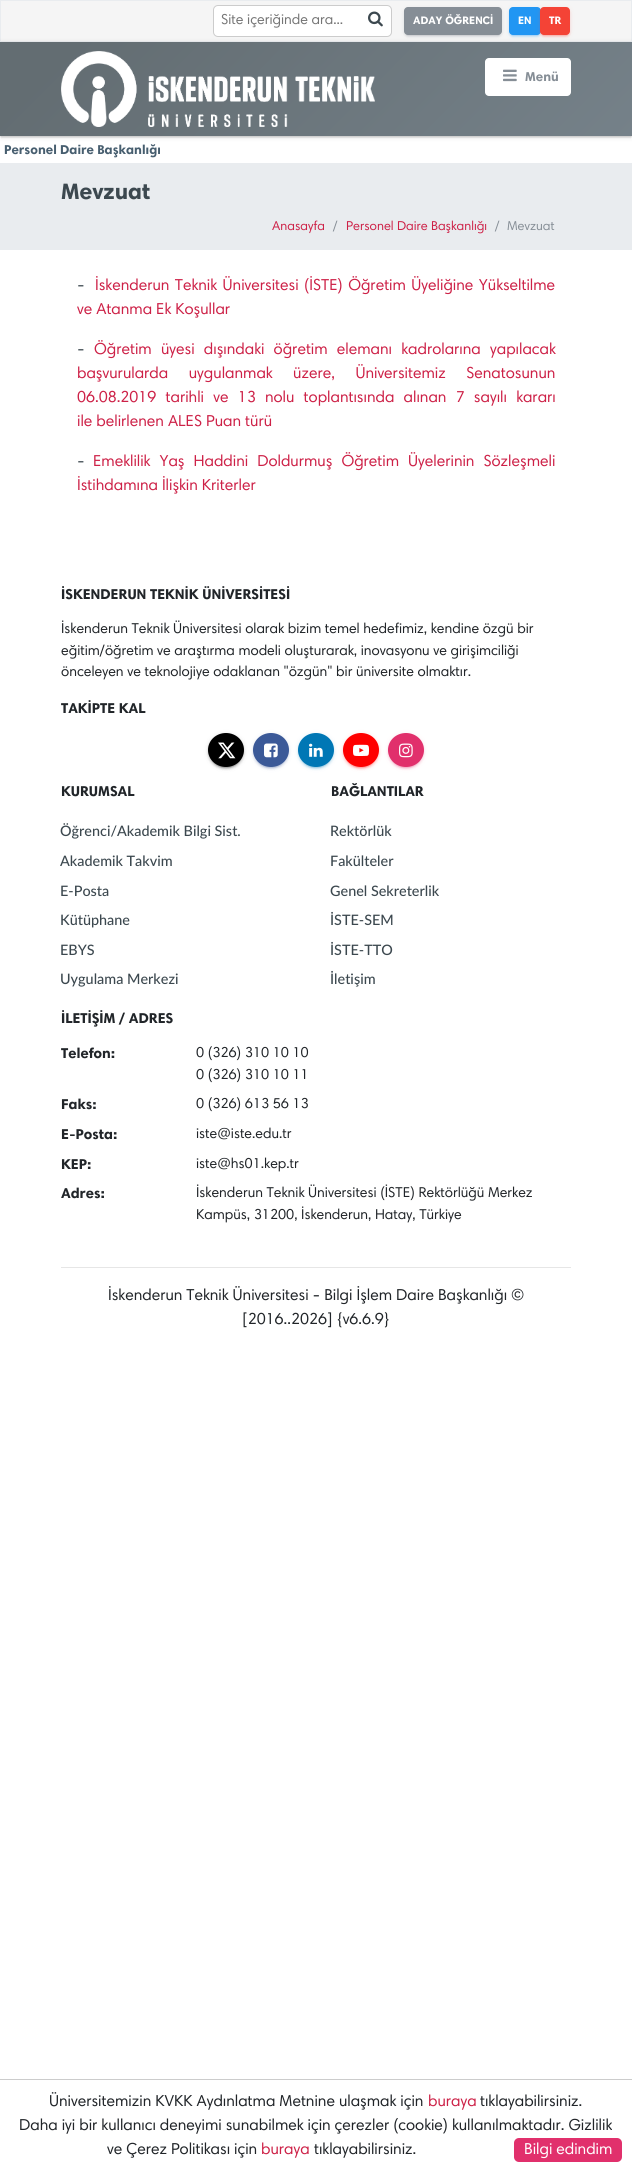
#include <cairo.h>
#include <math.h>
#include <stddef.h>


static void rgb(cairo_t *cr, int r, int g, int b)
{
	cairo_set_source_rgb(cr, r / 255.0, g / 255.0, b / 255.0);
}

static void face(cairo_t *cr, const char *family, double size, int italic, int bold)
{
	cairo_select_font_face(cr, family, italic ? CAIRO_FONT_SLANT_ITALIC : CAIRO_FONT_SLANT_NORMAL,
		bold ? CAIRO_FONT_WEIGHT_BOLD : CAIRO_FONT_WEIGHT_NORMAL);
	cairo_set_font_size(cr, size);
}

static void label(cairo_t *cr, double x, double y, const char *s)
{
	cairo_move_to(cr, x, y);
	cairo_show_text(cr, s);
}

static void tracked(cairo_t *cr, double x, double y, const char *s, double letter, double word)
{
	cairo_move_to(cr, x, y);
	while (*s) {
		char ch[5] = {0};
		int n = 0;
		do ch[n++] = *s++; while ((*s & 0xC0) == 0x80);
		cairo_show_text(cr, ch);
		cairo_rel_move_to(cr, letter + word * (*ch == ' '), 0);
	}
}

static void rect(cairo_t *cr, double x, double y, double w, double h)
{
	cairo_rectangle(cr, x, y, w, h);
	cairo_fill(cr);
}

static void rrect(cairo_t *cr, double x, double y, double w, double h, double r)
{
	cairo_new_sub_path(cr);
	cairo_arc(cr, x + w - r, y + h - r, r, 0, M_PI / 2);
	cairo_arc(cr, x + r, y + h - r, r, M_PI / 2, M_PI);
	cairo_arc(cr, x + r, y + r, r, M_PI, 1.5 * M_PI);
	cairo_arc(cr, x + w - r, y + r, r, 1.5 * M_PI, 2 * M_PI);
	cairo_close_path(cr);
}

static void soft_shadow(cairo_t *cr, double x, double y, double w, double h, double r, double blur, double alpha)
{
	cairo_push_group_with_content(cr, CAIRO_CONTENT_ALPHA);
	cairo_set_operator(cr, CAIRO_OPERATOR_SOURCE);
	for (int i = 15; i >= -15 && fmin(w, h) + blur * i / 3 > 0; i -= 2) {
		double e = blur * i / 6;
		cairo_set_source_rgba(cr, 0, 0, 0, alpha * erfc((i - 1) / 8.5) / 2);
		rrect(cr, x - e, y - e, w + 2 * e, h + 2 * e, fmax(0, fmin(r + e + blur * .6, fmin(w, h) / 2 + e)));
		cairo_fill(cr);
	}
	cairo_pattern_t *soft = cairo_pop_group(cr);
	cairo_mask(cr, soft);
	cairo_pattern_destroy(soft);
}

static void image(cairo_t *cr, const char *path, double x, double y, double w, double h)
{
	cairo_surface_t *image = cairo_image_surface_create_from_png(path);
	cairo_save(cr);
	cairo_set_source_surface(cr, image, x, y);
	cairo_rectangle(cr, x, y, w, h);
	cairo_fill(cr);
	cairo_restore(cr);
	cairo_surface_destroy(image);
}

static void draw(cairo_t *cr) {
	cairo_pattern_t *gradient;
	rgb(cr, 255, 255, 255);
	cairo_paint(cr);
	rgb(cr, 245, 245, 245);
	cairo_rectangle(cr, 0.5, 0.5, 631, 41);
	cairo_fill_preserve(cr);
	rgb(cr, 233, 236, 239);
	cairo_set_line_width(cr, 1);
	cairo_stroke(cr);
	rgb(cr, 0, 0, 0);
	soft_shadow(cr, 0, 43, 632, 94, 0, 3.5, 0.08);
	rgb(cr, 255, 255, 255);
	rrect(cr, 213.5, 5.5, 178, 31, 4.5);
	cairo_fill_preserve(cr);
	rgb(cr, 204, 204, 204);
	cairo_stroke(cr);
	face(cr, "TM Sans", 14.4, 0, 0);
	rgb(cr, 117, 117, 117);
	label(cr, 221, 24, "Site içeriğinde ara...");
	image(cr, "image0.png", 368, 11, 15, 16);
	rgb(cr, 0, 0, 0);
	soft_shadow(cr, 1, 46, 630, 92, 0, 0.5, 0.08);
	soft_shadow(cr, 0, 43, 632, 94, 0, 0.5, 0.08);
	gradient = cairo_pattern_create_linear(134, -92, 498, 271);
	cairo_pattern_add_color_stop_rgba(gradient, 0.1, 0.388, 0.427, 0.447, 1);
	cairo_pattern_add_color_stop_rgba(gradient, 1, 0.459, 0.506, 0.537, 1);
	cairo_set_source(cr, gradient);
	cairo_pattern_destroy(gradient);
	rect(cr, 0, 42, 632, 94);
	rgb(cr, 134, 142, 150);
	soft_shadow(cr, 404, 8, 98, 28, 4, 2.5, 0.12);
	soft_shadow(cr, 406, 12, 94, 24, 2, 0.5, 0.2);
	soft_shadow(cr, 404, 9, 98, 28, 4, 1, 0.14);
	rgb(cr, 134, 142, 150);
	rrect(cr, 404, 7, 98, 28, 4);
	cairo_fill(cr);
	face(cr, "TM Sans", 11, 0, 1);
	rgb(cr, 255, 255, 255);
	label(cr, 413, 24, "ADAY ÖĞRENCİ");
	rgb(cr, 33, 150, 243);
	soft_shadow(cr, 509, 8, 32, 28, 4, 2.5, 0.12);
	soft_shadow(cr, 511, 12, 28, 24, 2, 0.5, 0.2);
	soft_shadow(cr, 509, 9, 32, 28, 4, 1, 0.14);
	rgb(cr, 33, 150, 243);
	rrect(cr, 509, 7, 32, 28, 4);
	cairo_fill(cr);
	rgb(cr, 255, 255, 255);
	label(cr, 518, 24, "EN");
	rgb(cr, 244, 67, 54);
	soft_shadow(cr, 540, 8, 30, 28, 4, 2.5, 0.12);
	soft_shadow(cr, 542, 12, 26, 24, 2, 0.5, 0.2);
	soft_shadow(cr, 540, 9, 30, 28, 4, 1, 0.14);
	rgb(cr, 244, 67, 54);
	rrect(cr, 540, 7, 30, 28, 4);
	cairo_fill(cr);
	rgb(cr, 255, 255, 255);
	label(cr, 549, 24, "TR");
	image(cr, "image1.png", 61, 51, 314, 76);
	rrect(cr, 485, 58, 86, 38, 4);
	cairo_fill(cr);
	image(cr, "image2.png", 503, 69, 14, 13);
	face(cr, "TM Sans", 13, 0, 1);
	rgb(cr, 134, 142, 150);
	label(cr, 525, 81, "Menü");
	rgb(cr, 71, 94, 111);
	label(cr, 4, 154, "Personel Daire Başkanlığı");
	rgb(cr, 233, 236, 239);
	rect(cr, 0, 163, 632, 87);
	face(cr, "TM Sans", 22.5, 0, 1);
	rgb(cr, 60, 72, 79);
	label(cr, 61, 199, "Mevzuat");
	face(cr, "TM Sans", 13, 0, 0);
	rgb(cr, 205, 33, 71);
	label(cr, 272, 230, "Anasayfa");
	rgb(cr, 134, 142, 150);
	label(cr, 333, 230, "/");
	rgb(cr, 205, 33, 71);
	label(cr, 346, 230, "Personel Daire Başkanlığı");
	rgb(cr, 134, 142, 150);
	label(cr, 495, 230, "/");
	label(cr, 507, 230, "Mevzuat");
	face(cr, "TM Sans", 16, 0, 0);
	rgb(cr, 60, 72, 79);
	label(cr, 77, 290, "-");
	rgb(cr, 205, 33, 71);
	tracked(cr, 95, 290, "İskenderun Teknik Üniversitesi (İSTE) Öğretim Üyeliğine Yükseltilme", 0, 1.5);
	label(cr, 77, 314, "ve Atanma Ek Koşullar");
	rgb(cr, 60, 72, 79);
	label(cr, 77, 354, "-");
	rgb(cr, 205, 33, 71);
	tracked(cr, 94, 354, "Öğretim üyesi dışındaki öğretim elemanı kadrolarına yapılacak", 0, 5.25);
	tracked(cr, 77, 378, "başvurularda uygulanmak üzere, Üniversitemiz Senatosunun", 0, 16.5);
	tracked(cr, 77, 402, "06.08.2019 tarihli ve 13 nolu toplantısında alınan 7 sayılı kararı", 0, 5.25);
	label(cr, 77, 426, "ile belirlenen ALES Puan türü");
	rgb(cr, 60, 72, 79);
	label(cr, 77, 466, "-");
	rgb(cr, 205, 33, 71);
	tracked(cr, 93, 466, "Emeklilik Yaş Haddini Doldurmuş Öğretim Üyelerinin Sözleşmeli", 0, 5);
	label(cr, 77, 490, "İstihdamına İlişkin Kriterler");
	face(cr, "TM Sans", 14.4, 0, 1);
	rgb(cr, 33, 37, 41);
	label(cr, 61, 599, "İSKENDERUN TEKNİK ÜNİVERSİTESİ");
	face(cr, "TM Sans", 14.4, 0, 0);
	label(cr, 61, 633, "İskenderun Teknik Üniversitesi olarak bizim temel hedefimiz, kendine özgü bir");
	label(cr, 61, 655, "eğitim/öğretim ve araştırma modeli oluşturarak, inovasyonu ve girişimciliği");
	label(cr, 61, 676, "önceleyen ve teknolojiye odaklanan \"özgün\" bir üniversite olmaktır.");
	face(cr, "TM Sans", 14.4, 0, 1);
	label(cr, 61, 713, "TAKİPTE KAL");
	rgb(cr, 0, 0, 0);
	soft_shadow(cr, 208, 734, 36, 34, 17, 2.5, 0.12);
	soft_shadow(cr, 210, 738, 32, 30, 15, 0.5, 0.2);
	soft_shadow(cr, 208, 735, 36, 34, 17, 1, 0.14);
	rgb(cr, 0, 0, 0);
	cairo_new_path(cr);
	cairo_move_to(cr, 226, 733);
	cairo_curve_to(cr, 236, 733, 244, 740.5, 244, 750);
	cairo_curve_to(cr, 244, 759.5, 236, 767, 226, 767);
	cairo_curve_to(cr, 216, 767, 208, 759.5, 208, 750);
	cairo_curve_to(cr, 208, 740.5, 216, 733, 226, 733);
	cairo_close_path(cr);
	cairo_fill(cr);
	image(cr, "image3.png", 218, 742, 18, 17);
	rgb(cr, 59, 89, 152);
	soft_shadow(cr, 253, 734, 36, 34, 17, 2.5, 0.12);
	soft_shadow(cr, 255, 738, 32, 30, 15, 0.5, 0.2);
	soft_shadow(cr, 253, 735, 36, 34, 17, 1, 0.14);
	rgb(cr, 59, 89, 152);
	cairo_new_path(cr);
	cairo_move_to(cr, 271, 733);
	cairo_curve_to(cr, 281, 733, 289, 740.5, 289, 750);
	cairo_curve_to(cr, 289, 759.5, 281, 767, 271, 767);
	cairo_curve_to(cr, 261, 767, 253, 759.5, 253, 750);
	cairo_curve_to(cr, 253, 740.5, 261, 733, 271, 733);
	cairo_close_path(cr);
	cairo_fill(cr);
	image(cr, "image4.png", 264, 743, 14, 15);
	rgb(cr, 0, 119, 181);
	soft_shadow(cr, 298, 734, 36, 34, 17, 2.5, 0.12);
	soft_shadow(cr, 300, 738, 32, 30, 15, 0.5, 0.2);
	soft_shadow(cr, 298, 735, 36, 34, 17, 1, 0.14);
	rgb(cr, 0, 119, 181);
	cairo_new_path(cr);
	cairo_move_to(cr, 316, 733);
	cairo_curve_to(cr, 326, 733, 334, 740.5, 334, 750);
	cairo_curve_to(cr, 334, 759.5, 326, 767, 316, 767);
	cairo_curve_to(cr, 306, 767, 298, 759.5, 298, 750);
	cairo_curve_to(cr, 298, 740.5, 306, 733, 316, 733);
	cairo_close_path(cr);
	cairo_fill(cr);
	image(cr, "image5.png", 309, 743, 14, 14);
	rgb(cr, 255, 0, 0);
	soft_shadow(cr, 343, 734, 36, 34, 17, 2.5, 0.12);
	soft_shadow(cr, 345, 738, 32, 30, 15, 0.5, 0.2);
	soft_shadow(cr, 343, 735, 36, 34, 17, 1, 0.14);
	rgb(cr, 255, 0, 0);
	cairo_new_path(cr);
	cairo_move_to(cr, 361, 733);
	cairo_curve_to(cr, 371, 733, 379, 740.5, 379, 750);
	cairo_curve_to(cr, 379, 759.5, 371, 767, 361, 767);
	cairo_curve_to(cr, 351, 767, 343, 759.5, 343, 750);
	cairo_curve_to(cr, 343, 740.5, 351, 733, 361, 733);
	cairo_close_path(cr);
	cairo_fill(cr);
	image(cr, "image6.png", 353, 744, 16, 12);
	rgb(cr, 225, 48, 108);
	soft_shadow(cr, 388, 734, 36, 34, 17, 2.5, 0.12);
	soft_shadow(cr, 390, 738, 32, 30, 15, 0.5, 0.2);
	soft_shadow(cr, 388, 735, 36, 34, 17, 1, 0.14);
	rgb(cr, 225, 48, 108);
	cairo_new_path(cr);
	cairo_move_to(cr, 406, 733);
	cairo_curve_to(cr, 416, 733, 424, 740.5, 424, 750);
	cairo_curve_to(cr, 424, 759.5, 416, 767, 406, 767);
	cairo_curve_to(cr, 396, 767, 388, 759.5, 388, 750);
	cairo_curve_to(cr, 388, 740.5, 396, 733, 406, 733);
	cairo_close_path(cr);
	cairo_fill(cr);
	image(cr, "image7.png", 399, 743, 14, 15);
	rgb(cr, 33, 37, 41);
	label(cr, 61, 796, "KURUMSAL");
	face(cr, "Lato Medium", 14.4, 0, 0);
	rgb(cr, 60, 72, 79);
	label(cr, 60, 836, "Öğrenci/Akademik Bilgi Sist.");
	label(cr, 60, 866, "Akademik Takvim");
	label(cr, 60, 896, "E-Posta");
	label(cr, 60, 925, "Kütüphane");
	label(cr, 60, 955, "EBYS");
	label(cr, 60, 984, "Uygulama Merkezi");
	face(cr, "TM Sans", 14.4, 0, 1);
	rgb(cr, 33, 37, 41);
	label(cr, 331, 796, "BAĞLANTILAR");
	face(cr, "Lato Medium", 14.4, 0, 0);
	rgb(cr, 60, 72, 79);
	label(cr, 330, 836, "Rektörlük");
	label(cr, 330, 866, "Fakülteler");
	label(cr, 330, 896, "Genel Sekreterlik");
	label(cr, 330, 925, "İSTE-SEM");
	label(cr, 330, 955, "İSTE-TTO");
	label(cr, 330, 984, "İletişim");
	face(cr, "TM Sans", 14.4, 0, 1);
	rgb(cr, 33, 37, 41);
	label(cr, 61, 1023, "İLETİŞİM / ADRES");
	label(cr, 61, 1058, "Telefon:");
	face(cr, "TM Sans", 14.4, 0, 0);
	label(cr, 196, 1057, "0 (326) 310 10 10");
	label(cr, 196, 1079, "0 (326) 310 10 11");
	face(cr, "TM Sans", 14.4, 0, 1);
	label(cr, 61, 1109, "Faks:");
	face(cr, "TM Sans", 14.4, 0, 0);
	label(cr, 196, 1108, "0 (326) 613 56 13");
	face(cr, "TM Sans", 14.4, 0, 1);
	label(cr, 61, 1139, "E-Posta:");
	face(cr, "TM Sans", 14.4, 0, 0);
	label(cr, 196, 1138, "iste@iste.edu.tr");
	face(cr, "TM Sans", 14.4, 0, 1);
	label(cr, 61, 1169, "KEP:");
	face(cr, "TM Sans", 14.4, 0, 0);
	label(cr, 196, 1168, "iste@hs01.kep.tr");
	face(cr, "TM Sans", 14.4, 0, 1);
	label(cr, 61, 1198, "Adres:");
	face(cr, "TM Sans", 14.4, 0, 0);
	label(cr, 196, 1197, "İskenderun Teknik Üniversitesi (İSTE) Rektörlüğü Merkez");
	label(cr, 196, 1219, "Kampüs, 31200, İskenderun, Hatay, Türkiye");
	rgb(cr, 230, 230, 230);
	rect(cr, 61, 1267, 510, 1);
	face(cr, "TM Sans", 16, 0, 0);
	rgb(cr, 33, 37, 41);
	label(cr, 108, 1300, "İskenderun Teknik Üniversitesi - Bilgi İşlem Daire Başkanlığı ©");
	label(cr, 242, 1324, "[2016..2026] {v6.6.9}");
	rgb(cr, 204, 204, 204);
	rect(cr, 0, 2079, 632, 1);
	rgb(cr, 33, 37, 41);
	label(cr, 49, 2106, "Üniversitemizin KVKK Aydınlatma Metnine ulaşmak için");
	rgb(cr, 205, 33, 71);
	label(cr, 428, 2106, "buraya");
	rgb(cr, 33, 37, 41);
	label(cr, 480, 2106, "tıklayabilirsiniz.");
	label(cr, 19, 2130, "Daha iyi bir kullanıcı deneyimi sunabilmek için çerezler (cookie) kullanılmaktadır. Gizlilik");
	label(cr, 107, 2154, "ve Çerez Politikası için");
	rgb(cr, 205, 33, 71);
	label(cr, 261, 2154, "buraya");
	rgb(cr, 33, 37, 41);
	label(cr, 314, 2154, "tıklayabilirsiniz.");
	rgb(cr, 225, 48, 108);
	rrect(cr, 514, 2138, 108, 24, 5);
	cairo_fill(cr);
	rgb(cr, 255, 255, 255);
	label(cr, 524, 2154, "Bilgi edindim");
}

int main(void) {
	cairo_surface_t *surface = cairo_image_surface_create(CAIRO_FORMAT_RGB24, 632, 2172);
	cairo_t *cr = cairo_create(surface);
	cairo_font_options_t *options = cairo_font_options_create();
	cairo_font_options_set_hint_metrics(options, CAIRO_HINT_METRICS_OFF);
	cairo_font_options_set_hint_style(options, CAIRO_HINT_STYLE_NONE);
	cairo_set_font_options(cr, options);
	cairo_set_miter_limit(cr, 4);
	draw(cr);
	cairo_surface_write_to_png(surface, "render.png");
	cairo_font_options_destroy(options);
	cairo_destroy(cr);
	cairo_surface_destroy(surface);
	return 0;
}
